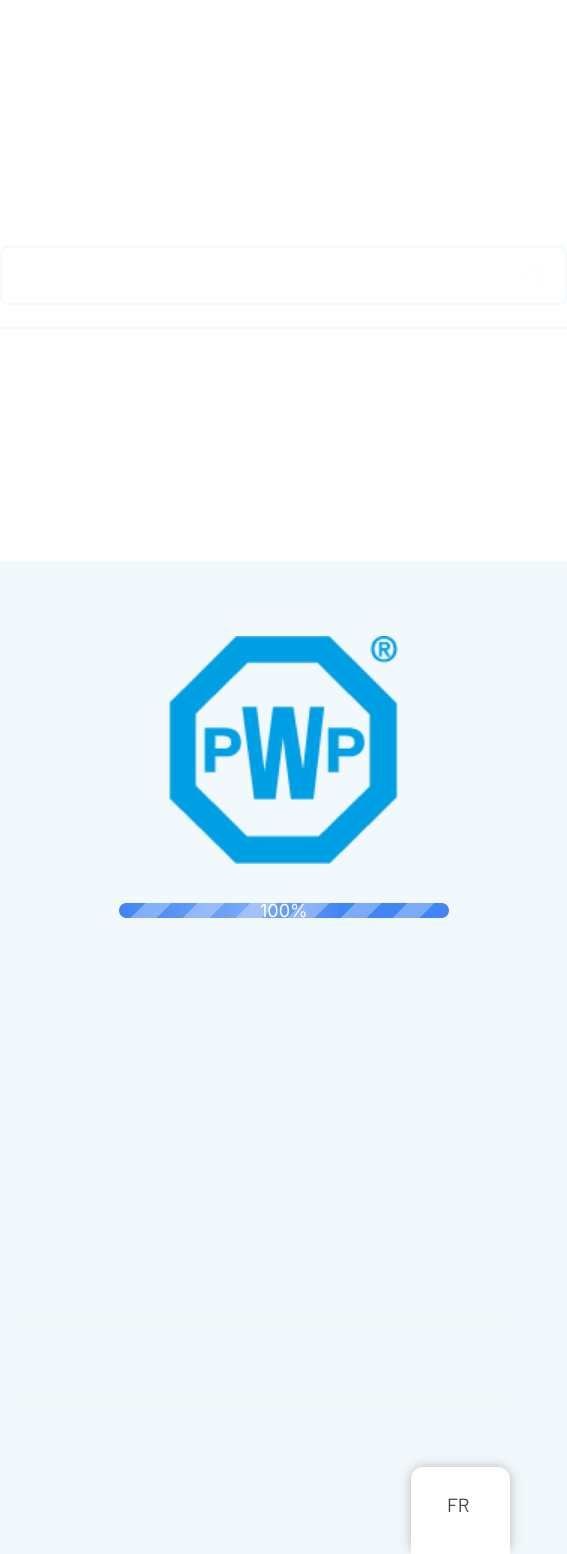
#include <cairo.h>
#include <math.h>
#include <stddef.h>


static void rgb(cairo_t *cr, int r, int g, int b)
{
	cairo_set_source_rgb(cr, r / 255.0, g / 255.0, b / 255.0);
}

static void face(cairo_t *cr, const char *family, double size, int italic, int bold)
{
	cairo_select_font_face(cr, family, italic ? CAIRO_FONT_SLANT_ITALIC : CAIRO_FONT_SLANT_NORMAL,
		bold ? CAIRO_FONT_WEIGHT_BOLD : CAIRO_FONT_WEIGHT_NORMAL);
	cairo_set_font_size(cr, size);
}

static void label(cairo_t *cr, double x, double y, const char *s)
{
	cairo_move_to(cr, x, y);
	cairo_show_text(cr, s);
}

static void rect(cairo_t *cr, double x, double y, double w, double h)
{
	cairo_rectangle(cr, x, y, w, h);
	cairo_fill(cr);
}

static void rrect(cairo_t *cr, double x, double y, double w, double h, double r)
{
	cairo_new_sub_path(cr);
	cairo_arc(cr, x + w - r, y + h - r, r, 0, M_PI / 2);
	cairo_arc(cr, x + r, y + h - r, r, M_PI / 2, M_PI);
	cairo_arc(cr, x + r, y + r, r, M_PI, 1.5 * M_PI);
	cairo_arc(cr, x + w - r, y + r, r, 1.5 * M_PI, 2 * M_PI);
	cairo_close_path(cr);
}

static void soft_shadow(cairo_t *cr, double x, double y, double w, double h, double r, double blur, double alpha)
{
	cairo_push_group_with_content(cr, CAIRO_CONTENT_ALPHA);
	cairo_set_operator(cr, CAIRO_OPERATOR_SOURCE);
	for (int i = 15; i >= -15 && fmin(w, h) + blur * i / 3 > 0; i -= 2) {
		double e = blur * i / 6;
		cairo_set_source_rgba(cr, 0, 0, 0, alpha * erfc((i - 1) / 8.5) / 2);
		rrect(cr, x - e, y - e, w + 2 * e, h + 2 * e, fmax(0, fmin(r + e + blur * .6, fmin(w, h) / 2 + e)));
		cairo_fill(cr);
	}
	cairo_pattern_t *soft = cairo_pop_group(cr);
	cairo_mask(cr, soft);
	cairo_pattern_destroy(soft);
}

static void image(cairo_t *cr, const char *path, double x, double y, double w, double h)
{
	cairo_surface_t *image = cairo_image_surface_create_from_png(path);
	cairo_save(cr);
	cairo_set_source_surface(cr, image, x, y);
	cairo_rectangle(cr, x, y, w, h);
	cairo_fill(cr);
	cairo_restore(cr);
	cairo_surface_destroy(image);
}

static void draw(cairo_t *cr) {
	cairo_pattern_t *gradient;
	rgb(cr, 255, 255, 255);
	cairo_paint(cr);
	image(cr, "image0.png", 525, 264, 23, 23);
	rrect(cr, 1, 247, 565, 57, 7);
	rgb(cr, 242, 250, 254);
	cairo_stroke(cr);
	rgb(cr, 242, 249, 252);
	rect(cr, 0, 327, 567, 2);
	rect(cr, 0, 561, 567, 993);
	rgb(cr, 244, 245, 246);
	rect(cr, 30, 1325, 467, 2);
	rect(cr, 30, 1404, 467, 2);
	image(cr, "image1.png", 169, 636, 229, 228);
	rgb(cr, 66, 133, 244);
	rrect(cr, 119, 903, 330, 15, 7.5);
	cairo_fill(cr);
	gradient = cairo_pattern_create_linear(171, 956, 119, 903);
	cairo_pattern_add_color_stop_rgba(gradient, 0.25, 1, 1, 1, 0.3);
	cairo_pattern_add_color_stop_rgba(gradient, 0.25, 1, 1, 1, 0);
	cairo_pattern_add_color_stop_rgba(gradient, 0.5, 1, 1, 1, 0);
	cairo_pattern_add_color_stop_rgba(gradient, 0.5, 1, 1, 1, 0.3);
	cairo_pattern_add_color_stop_rgba(gradient, 0.75, 1, 1, 1, 0.3);
	cairo_pattern_add_color_stop_rgba(gradient, 0.75, 1, 1, 1, 0);
	cairo_pattern_add_color_stop_rgba(gradient, 1, 0, 0, 0, 0);
	cairo_set_source(cr, gradient);
	cairo_pattern_destroy(gradient);
	rect(cr, 131, 903, 40, 15);
	gradient = cairo_pattern_create_linear(224, 956, 171, 903);
	cairo_pattern_add_color_stop_rgba(gradient, 0.25, 0.482, 0.667, 0.969, 1);
	cairo_pattern_add_color_stop_rgba(gradient, 0.25, 0.259, 0.522, 0.957, 1);
	cairo_pattern_add_color_stop_rgba(gradient, 0.5, 0.259, 0.522, 0.957, 1);
	cairo_pattern_add_color_stop_rgba(gradient, 0.5, 0.482, 0.667, 0.969, 1);
	cairo_pattern_add_color_stop_rgba(gradient, 0.75, 0.482, 0.667, 0.969, 1);
	cairo_pattern_add_color_stop_rgba(gradient, 0.75, 0.259, 0.522, 0.957, 1);
	cairo_pattern_add_color_stop_rgba(gradient, 1, 0.259, 0.522, 0.957, 1);
	cairo_set_source(cr, gradient);
	cairo_pattern_destroy(gradient);
	rect(cr, 183, 903, 41, 15);
	gradient = cairo_pattern_create_linear(276, 956, 224, 903);
	cairo_pattern_add_color_stop_rgba(gradient, 0.25, 0.482, 0.667, 0.969, 1);
	cairo_pattern_add_color_stop_rgba(gradient, 0.25, 0.259, 0.522, 0.957, 1);
	cairo_pattern_add_color_stop_rgba(gradient, 0.5, 0.259, 0.522, 0.957, 1);
	cairo_pattern_add_color_stop_rgba(gradient, 0.5, 0.482, 0.667, 0.969, 1);
	cairo_pattern_add_color_stop_rgba(gradient, 0.75, 0.482, 0.667, 0.969, 1);
	cairo_pattern_add_color_stop_rgba(gradient, 0.75, 0.259, 0.522, 0.957, 1);
	cairo_pattern_add_color_stop_rgba(gradient, 1, 0.259, 0.522, 0.957, 1);
	cairo_set_source(cr, gradient);
	cairo_pattern_destroy(gradient);
	rect(cr, 236, 903, 40, 15);
	gradient = cairo_pattern_create_linear(329, 956, 276, 903);
	cairo_pattern_add_color_stop_rgba(gradient, 0.25, 0.482, 0.667, 0.969, 1);
	cairo_pattern_add_color_stop_rgba(gradient, 0.25, 0.259, 0.522, 0.957, 1);
	cairo_pattern_add_color_stop_rgba(gradient, 0.5, 0.259, 0.522, 0.957, 1);
	cairo_pattern_add_color_stop_rgba(gradient, 0.5, 0.482, 0.667, 0.969, 1);
	cairo_pattern_add_color_stop_rgba(gradient, 0.75, 0.482, 0.667, 0.969, 1);
	cairo_pattern_add_color_stop_rgba(gradient, 0.75, 0.259, 0.522, 0.957, 1);
	cairo_pattern_add_color_stop_rgba(gradient, 1, 0.259, 0.522, 0.957, 1);
	cairo_set_source(cr, gradient);
	cairo_pattern_destroy(gradient);
	rect(cr, 288, 903, 41, 15);
	gradient = cairo_pattern_create_linear(381, 956, 329, 903);
	cairo_pattern_add_color_stop_rgba(gradient, 0.25, 0.482, 0.667, 0.969, 1);
	cairo_pattern_add_color_stop_rgba(gradient, 0.25, 0.259, 0.522, 0.957, 1);
	cairo_pattern_add_color_stop_rgba(gradient, 0.5, 0.259, 0.522, 0.957, 1);
	cairo_pattern_add_color_stop_rgba(gradient, 0.5, 0.482, 0.667, 0.969, 1);
	cairo_pattern_add_color_stop_rgba(gradient, 0.75, 0.482, 0.667, 0.969, 1);
	cairo_pattern_add_color_stop_rgba(gradient, 0.75, 0.259, 0.522, 0.957, 1);
	cairo_pattern_add_color_stop_rgba(gradient, 1, 0.259, 0.522, 0.957, 1);
	cairo_set_source(cr, gradient);
	cairo_pattern_destroy(gradient);
	rect(cr, 341, 903, 40, 15);
	gradient = cairo_pattern_create_linear(434, 956, 381, 903);
	cairo_pattern_add_color_stop_rgba(gradient, 0.25, 0.482, 0.667, 0.969, 1);
	cairo_pattern_add_color_stop_rgba(gradient, 0.25, 0.259, 0.522, 0.957, 1);
	cairo_pattern_add_color_stop_rgba(gradient, 0.5, 0.259, 0.522, 0.957, 1);
	cairo_pattern_add_color_stop_rgba(gradient, 0.5, 0.482, 0.667, 0.969, 1);
	cairo_pattern_add_color_stop_rgba(gradient, 0.75, 0.482, 0.667, 0.969, 1);
	cairo_pattern_add_color_stop_rgba(gradient, 0.75, 0.259, 0.522, 0.957, 1);
	cairo_pattern_add_color_stop_rgba(gradient, 1, 0.259, 0.522, 0.957, 1);
	cairo_set_source(cr, gradient);
	cairo_pattern_destroy(gradient);
	rect(cr, 393, 903, 41, 15);
	gradient = cairo_pattern_create_linear(119, 911, 344, 911);
	cairo_pattern_add_color_stop_rgba(gradient, 0, 1, 1, 1, 0);
	cairo_pattern_add_color_stop_rgba(gradient, 0.4, 1, 1, 1, 0.2);
	cairo_pattern_add_color_stop_rgba(gradient, 0.6, 1, 1, 1, 0.3);
	cairo_pattern_add_color_stop_rgba(gradient, 1, 1, 1, 1, 0);
	cairo_set_source(cr, gradient);
	cairo_pattern_destroy(gradient);
	rect(cr, 129, 903, 209, 15);
	face(cr, "Inter", 18, 0, 0);
	rgb(cr, 255, 255, 255);
	label(cr, 260, 917, "100%");
	rgb(cr, 0, 0, 0);
	soft_shadow(cr, 411, 1467, 99, 87, 12, 6, 0.25);
	rgb(cr, 255, 255, 255);
	cairo_new_path(cr);
	cairo_move_to(cr, 423, 1467);
	cairo_line_to(cr, 498, 1467);
	cairo_curve_to(cr, 504.5, 1467, 510, 1472.5, 510, 1479);
	cairo_line_to(cr, 510, 1554);
	cairo_line_to(cr, 411, 1554);
	cairo_line_to(cr, 411, 1479);
	cairo_curve_to(cr, 411, 1472.5, 416.5, 1467, 423, 1467);
	cairo_close_path(cr);
	cairo_fill(cr);
	face(cr, "Barlow", 19, 0, 0);
	rgb(cr, 64, 64, 64);
	label(cr, 447, 1512, "FR");
}

int main(void) {
	cairo_surface_t *surface = cairo_image_surface_create(CAIRO_FORMAT_RGB24, 567, 1554);
	cairo_t *cr = cairo_create(surface);
	cairo_font_options_t *options = cairo_font_options_create();
	cairo_font_options_set_hint_metrics(options, CAIRO_HINT_METRICS_OFF);
	cairo_font_options_set_hint_style(options, CAIRO_HINT_STYLE_NONE);
	cairo_set_font_options(cr, options);
	cairo_set_miter_limit(cr, 4);
	draw(cr);
	cairo_surface_write_to_png(surface, "render.png");
	cairo_font_options_destroy(options);
	cairo_destroy(cr);
	cairo_surface_destroy(surface);
	return 0;
}
